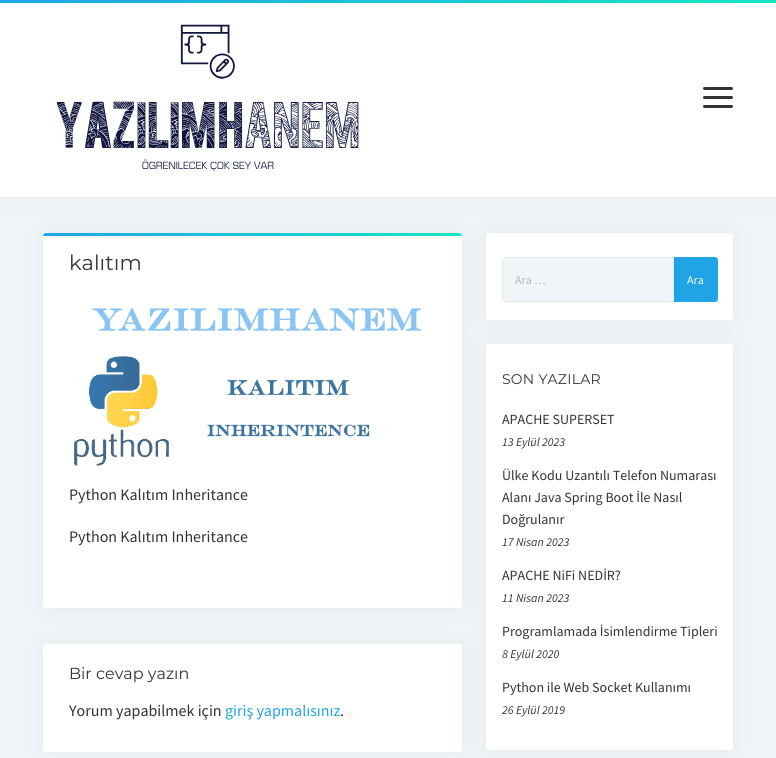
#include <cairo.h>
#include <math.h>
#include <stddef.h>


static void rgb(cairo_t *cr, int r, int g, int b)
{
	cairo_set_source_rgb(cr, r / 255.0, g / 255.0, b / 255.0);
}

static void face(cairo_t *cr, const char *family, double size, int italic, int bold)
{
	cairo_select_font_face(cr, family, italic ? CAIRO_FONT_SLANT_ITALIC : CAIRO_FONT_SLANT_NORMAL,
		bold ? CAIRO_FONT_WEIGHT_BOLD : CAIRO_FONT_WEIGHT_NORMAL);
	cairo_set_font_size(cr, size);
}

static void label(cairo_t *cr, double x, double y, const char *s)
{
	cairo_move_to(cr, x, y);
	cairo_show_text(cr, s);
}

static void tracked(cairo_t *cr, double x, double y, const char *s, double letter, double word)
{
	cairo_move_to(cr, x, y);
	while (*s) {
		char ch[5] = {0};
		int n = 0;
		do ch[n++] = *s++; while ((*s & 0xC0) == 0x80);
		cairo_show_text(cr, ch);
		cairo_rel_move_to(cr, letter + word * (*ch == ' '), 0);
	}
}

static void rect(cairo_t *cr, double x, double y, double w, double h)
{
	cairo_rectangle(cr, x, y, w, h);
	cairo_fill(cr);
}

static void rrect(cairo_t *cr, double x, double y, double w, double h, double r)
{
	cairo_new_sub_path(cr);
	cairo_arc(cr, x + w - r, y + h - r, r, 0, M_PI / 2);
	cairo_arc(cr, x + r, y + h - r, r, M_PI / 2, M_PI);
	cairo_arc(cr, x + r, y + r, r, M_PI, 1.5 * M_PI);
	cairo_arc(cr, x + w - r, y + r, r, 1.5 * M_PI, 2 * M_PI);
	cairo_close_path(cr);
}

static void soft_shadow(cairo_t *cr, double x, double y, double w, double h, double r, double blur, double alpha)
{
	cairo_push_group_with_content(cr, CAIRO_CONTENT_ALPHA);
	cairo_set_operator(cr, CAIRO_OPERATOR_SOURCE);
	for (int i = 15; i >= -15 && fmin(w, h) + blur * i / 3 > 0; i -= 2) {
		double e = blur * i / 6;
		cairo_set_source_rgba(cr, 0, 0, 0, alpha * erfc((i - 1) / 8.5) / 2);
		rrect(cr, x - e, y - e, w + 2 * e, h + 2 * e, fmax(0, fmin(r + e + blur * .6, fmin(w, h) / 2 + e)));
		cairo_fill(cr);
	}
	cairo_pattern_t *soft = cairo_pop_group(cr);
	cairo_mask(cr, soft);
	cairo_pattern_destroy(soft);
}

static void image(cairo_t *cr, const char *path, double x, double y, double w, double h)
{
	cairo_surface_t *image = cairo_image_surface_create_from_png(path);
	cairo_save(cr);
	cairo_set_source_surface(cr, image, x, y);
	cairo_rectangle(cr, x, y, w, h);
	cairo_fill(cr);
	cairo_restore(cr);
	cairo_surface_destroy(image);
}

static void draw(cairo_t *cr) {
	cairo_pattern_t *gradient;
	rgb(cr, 240, 245, 248);
	cairo_paint(cr);
	rgb(cr, 0, 0, 0);
	soft_shadow(cr, 486, 233, 247, 87, 3, 12, 0.05);
	rgb(cr, 255, 255, 255);
	rrect(cr, 486, 233, 247, 87, 3);
	cairo_fill(cr);
	rgb(cr, 0, 0, 0);
	soft_shadow(cr, 0, 0, 776, 197, 3, 12, 0.05);
	rgb(cr, 255, 255, 255);
	rrect(cr, 0, 0, 776, 197, 3);
	cairo_fill(cr);
	image(cr, "image0.png", 56, 24, 303, 147);
	rgb(cr, 51, 51, 51);
	rrect(cr, 703, 87, 30, 3, 1.5);
	cairo_fill(cr);
	rrect(cr, 703, 96, 30, 3, 1.5);
	cairo_fill(cr);
	rrect(cr, 703, 105, 30, 3, 1.5);
	cairo_fill(cr);
	gradient = cairo_pattern_create_linear(0, 1.5, 776, 1.5);
	cairo_pattern_add_color_stop_rgba(gradient, 0, 0.125, 0.643, 0.902, 1);
	cairo_pattern_add_color_stop_rgba(gradient, 1, 0.09, 0.902, 0.765, 1);
	cairo_set_source(cr, gradient);
	cairo_pattern_destroy(gradient);
	rect(cr, 0, 0, 776, 3);
	rgb(cr, 0, 0, 0);
	soft_shadow(cr, 43, 644, 419, 108, 3, 12, 0.05);
	rgb(cr, 255, 255, 255);
	rrect(cr, 43, 644, 419, 108, 3);
	cairo_fill(cr);
	rgb(cr, 0, 0, 0);
	soft_shadow(cr, 486, 344, 247, 406, 3, 12, 0.05);
	rgb(cr, 255, 255, 255);
	rrect(cr, 486, 344, 247, 406, 3);
	cairo_fill(cr);
	rgb(cr, 0, 0, 0);
	soft_shadow(cr, 43, 233, 419, 375, 3, 12, 0.05);
	rgb(cr, 255, 255, 255);
	rrect(cr, 43, 233, 419, 375, 3);
	cairo_fill(cr);
	gradient = cairo_pattern_create_linear(43, 235, 462, 235);
	cairo_pattern_add_color_stop_rgba(gradient, 0, 0.125, 0.643, 0.902, 1);
	cairo_pattern_add_color_stop_rgba(gradient, 1, 0.09, 0.902, 0.765, 1);
	cairo_set_source(cr, gradient);
	cairo_pattern_destroy(gradient);
	cairo_new_path(cr);
	cairo_move_to(cr, 46, 233);
	cairo_line_to(cr, 459, 233);
	cairo_curve_to(cr, 460.5, 233, 462, 234.5, 462, 236);
	cairo_line_to(cr, 43, 236);
	cairo_curve_to(cr, 43, 234.5, 44.5, 233, 46, 233);
	cairo_close_path(cr);
	cairo_fill(cr);
	face(cr, "Montserrat Thin", 21, 0, 0);
	rgb(cr, 51, 51, 51);
	label(cr, 69, 270, "kalıtım");
	image(cr, "image1.png", 74, 308, 347, 158);
	face(cr, "Source Sans Pro", 16, 0, 0);
	label(cr, 69, 500, "Python Kalıtım Inheritance");
	label(cr, 69, 542, "Python Kalıtım Inheritance");
	face(cr, "Montserrat Thin", 16, 0, 0);
	label(cr, 69, 679, "Bir cevap yazın");
	face(cr, "Source Sans Pro", 16, 0, 0);
	label(cr, 69, 716, "Yorum yapabilmek için");
	rgb(cr, 32, 164, 230);
	label(cr, 225, 716, "giriş yapmalısınız");
	rgb(cr, 51, 51, 51);
	label(cr, 340, 716, ".");
	rgb(cr, 240, 245, 248);
	cairo_new_path(cr);
	cairo_move_to(cr, 505, 257.5);
	cairo_line_to(cr, 673.5, 257.5);
	cairo_line_to(cr, 673.5, 301.5);
	cairo_line_to(cr, 505, 301.5);
	cairo_curve_to(cr, 503.5, 301.5, 502.5, 300.5, 502.5, 299);
	cairo_line_to(cr, 502.5, 260);
	cairo_curve_to(cr, 502.5, 258.5, 503.5, 257.5, 505, 257.5);
	cairo_close_path(cr);
	cairo_fill_preserve(cr);
	rgb(cr, 228, 232, 235);
	cairo_set_line_width(cr, 1);
	cairo_stroke(cr);
	face(cr, "Source Sans Pro", 12, 0, 0);
	rgb(cr, 179, 179, 179);
	label(cr, 515, 284, "Ara …");
	rgb(cr, 32, 164, 230);
	cairo_new_path(cr);
	cairo_move_to(cr, 674, 257);
	cairo_line_to(cr, 715, 257);
	cairo_curve_to(cr, 716.5, 257, 718, 258.5, 718, 260);
	cairo_line_to(cr, 718, 299);
	cairo_curve_to(cr, 718, 300.5, 716.5, 302, 715, 302);
	cairo_line_to(cr, 674, 302);
	cairo_close_path(cr);
	cairo_fill(cr);
	rgb(cr, 255, 255, 255);
	label(cr, 687, 284, "Ara");
	face(cr, "Montserrat Thin", 14, 0, 0);
	rgb(cr, 51, 51, 51);
	tracked(cr, 502, 384, "SON YAZILAR", 0.25, 0);
	face(cr, "Source Sans Pro", 14, 0, 0);
	label(cr, 502, 424, "APACHE SUPERSET");
	face(cr, "Source Sans Pro", 12, 1, 0);
	label(cr, 502, 446, "13 Eylül 2023");
	face(cr, "Source Sans Pro", 14, 0, 0);
	label(cr, 502, 480, "Ülke Kodu Uzantılı Telefon Numarası");
	label(cr, 502, 502, "Alanı Java Spring Boot İle Nasıl");
	label(cr, 502, 524, "Doğrulanır");
	face(cr, "Source Sans Pro", 12, 1, 0);
	label(cr, 502, 546, "17 Nisan 2023");
	face(cr, "Source Sans Pro", 14, 0, 0);
	label(cr, 502, 580, "APACHE NiFi NEDİR?");
	face(cr, "Source Sans Pro", 12, 1, 0);
	label(cr, 502, 602, "11 Nisan 2023");
	face(cr, "Source Sans Pro", 14, 0, 0);
	label(cr, 502, 636, "Programlamada İsimlendirme Tipleri");
	face(cr, "Source Sans Pro", 12, 1, 0);
	label(cr, 502, 658, "8 Eylül 2020");
	face(cr, "Source Sans Pro", 14, 0, 0);
	label(cr, 502, 692, "Python ile Web Socket Kullanımı");
	face(cr, "Source Sans Pro", 12, 1, 0);
	label(cr, 502, 714, "26 Eylül 2019");
}

int main(void) {
	cairo_surface_t *surface = cairo_image_surface_create(CAIRO_FORMAT_RGB24, 776, 758);
	cairo_t *cr = cairo_create(surface);
	cairo_font_options_t *options = cairo_font_options_create();
	cairo_font_options_set_hint_metrics(options, CAIRO_HINT_METRICS_OFF);
	cairo_font_options_set_hint_style(options, CAIRO_HINT_STYLE_NONE);
	cairo_set_font_options(cr, options);
	cairo_set_miter_limit(cr, 4);
	draw(cr);
	cairo_surface_write_to_png(surface, "render.png");
	cairo_font_options_destroy(options);
	cairo_destroy(cr);
	cairo_surface_destroy(surface);
	return 0;
}
